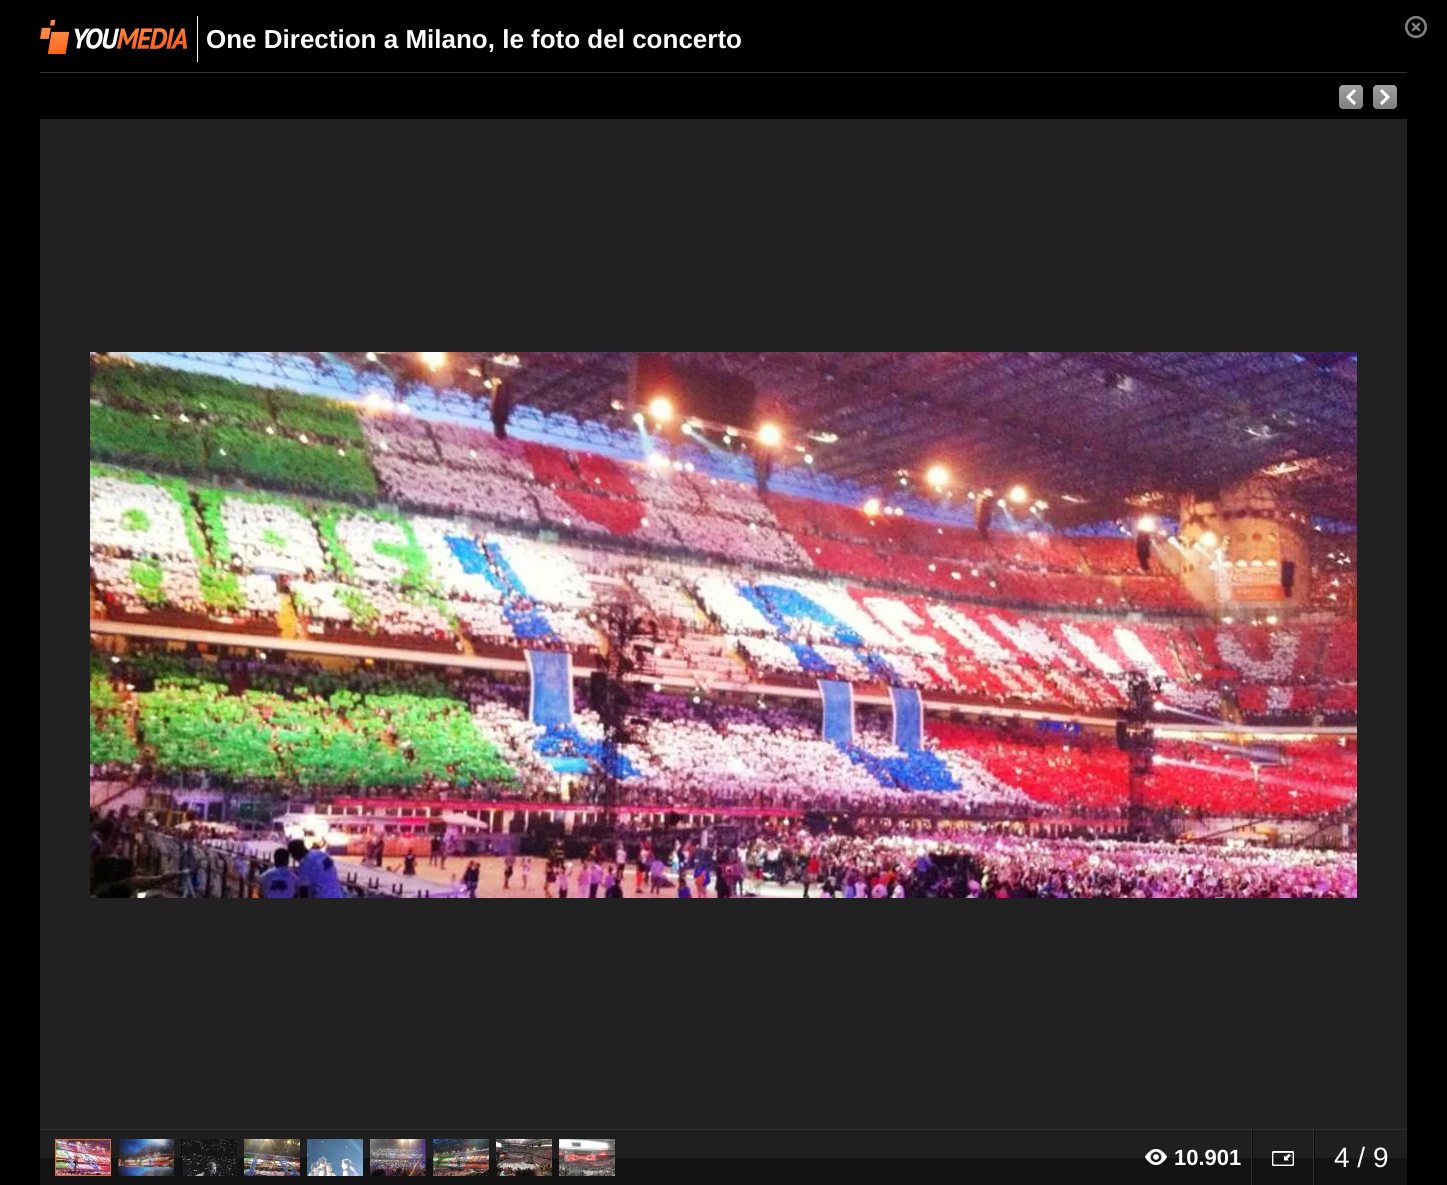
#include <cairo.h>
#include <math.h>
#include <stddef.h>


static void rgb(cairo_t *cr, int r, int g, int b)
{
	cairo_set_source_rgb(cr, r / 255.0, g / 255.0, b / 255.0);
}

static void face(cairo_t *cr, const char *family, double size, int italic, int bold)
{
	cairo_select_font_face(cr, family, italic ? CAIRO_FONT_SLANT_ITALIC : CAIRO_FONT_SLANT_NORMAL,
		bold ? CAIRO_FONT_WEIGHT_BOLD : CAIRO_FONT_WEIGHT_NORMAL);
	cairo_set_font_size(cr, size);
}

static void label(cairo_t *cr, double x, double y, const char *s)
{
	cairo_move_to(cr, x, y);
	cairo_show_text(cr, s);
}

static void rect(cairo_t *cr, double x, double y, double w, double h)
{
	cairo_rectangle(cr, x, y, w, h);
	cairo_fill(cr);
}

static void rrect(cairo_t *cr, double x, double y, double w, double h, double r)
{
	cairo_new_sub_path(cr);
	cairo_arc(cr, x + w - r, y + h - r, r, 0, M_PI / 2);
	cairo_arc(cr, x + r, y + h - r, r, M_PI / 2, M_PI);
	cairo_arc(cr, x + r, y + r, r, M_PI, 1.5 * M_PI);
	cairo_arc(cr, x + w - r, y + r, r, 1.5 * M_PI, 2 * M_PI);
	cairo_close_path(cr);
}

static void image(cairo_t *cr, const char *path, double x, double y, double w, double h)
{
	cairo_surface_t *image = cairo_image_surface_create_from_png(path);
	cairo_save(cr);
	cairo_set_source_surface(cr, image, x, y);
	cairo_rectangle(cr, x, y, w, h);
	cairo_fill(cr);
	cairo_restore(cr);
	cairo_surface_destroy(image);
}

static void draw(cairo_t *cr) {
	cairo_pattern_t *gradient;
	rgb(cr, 0, 0, 0);
	cairo_paint(cr);
	rgb(cr, 51, 51, 51);
	rect(cr, 40, 72, 1367, 1);
	image(cr, "image0.png", 40, 20, 147, 34);
	rgb(cr, 247, 247, 245);
	rect(cr, 197, 16, 1, 46);
	face(cr, "Liberation Sans", 26, 0, 1);
	rgb(cr, 255, 255, 255);
	label(cr, 206, 48, "One Direction a Milano, le foto del concerto");
	image(cr, "image1.png", 1405, 16, 22, 22);
	gradient = cairo_pattern_create_linear(1351, 85, 1351, 109);
	cairo_pattern_add_color_stop_rgba(gradient, 0, 0.631, 0.631, 0.631, 1);
	cairo_pattern_add_color_stop_rgba(gradient, 1, 0.494, 0.494, 0.494, 1);
	cairo_set_source(cr, gradient);
	cairo_pattern_destroy(gradient);
	rrect(cr, 1339, 85, 24, 24, 4);
	cairo_fill(cr);
	image(cr, "image2.png", 1346, 89, 10, 16);
	gradient = cairo_pattern_create_linear(1385, 85, 1385, 109);
	cairo_pattern_add_color_stop_rgba(gradient, 0, 0.631, 0.631, 0.631, 1);
	cairo_pattern_add_color_stop_rgba(gradient, 1, 0.494, 0.494, 0.494, 1);
	cairo_set_source(cr, gradient);
	cairo_pattern_destroy(gradient);
	rrect(cr, 1373, 85, 24, 24, 4);
	cairo_fill(cr);
	image(cr, "image3.png", 1380, 89, 10, 16);
	rgb(cr, 33, 33, 33);
	rect(cr, 40, 119, 1367, 1010);
	image(cr, "image4.png", 90, 352, 1267, 546);
	rgb(cr, 19, 19, 19);
	rect(cr, 40, 1158, 1367, 27);
	rgb(cr, 31, 31, 31);
	rect(cr, 40, 1130, 1367, 28);
	rgb(cr, 49, 49, 49);
	rect(cr, 40, 1129, 1367, 1);
	cairo_rectangle(cr, 55.5, 1139.5, 55, 36);
	rgb(cr, 218, 109, 49);
	cairo_set_line_width(cr, 1);
	cairo_stroke(cr);
	image(cr, "image5.png", 56, 1140, 54, 35);
	image(cr, "image6.png", 118, 1139, 56, 37);
	image(cr, "image7.png", 181, 1139, 56, 37);
	image(cr, "image8.png", 244, 1139, 56, 37);
	image(cr, "image9.png", 307, 1139, 56, 37);
	image(cr, "image10.png", 370, 1139, 56, 37);
	image(cr, "image11.png", 433, 1139, 56, 37);
	image(cr, "image12.png", 496, 1139, 56, 37);
	image(cr, "image13.png", 559, 1139, 56, 37);
	rgb(cr, 49, 49, 49);
	rect(cr, 1251, 1130, 1, 55);
	image(cr, "image14.png", 1145, 1149, 22, 16);
	face(cr, "Liberation Sans", 22, 0, 1);
	rgb(cr, 255, 255, 255);
	label(cr, 1174, 1165, "10.901");
	rgb(cr, 49, 49, 49);
	rect(cr, 1313, 1130, 1, 55);
	rgb(cr, 15, 15, 15);
	rect(cr, 1252, 1130, 1, 55);
	image(cr, "image15.png", 1272, 1151, 22, 15);
	rect(cr, 1314, 1130, 1, 55);
	face(cr, "Liberation Sans", 28, 0, 0);
	rgb(cr, 255, 255, 255);
	label(cr, 1334, 1167, "4 / 9");
}

int main(void) {
	cairo_surface_t *surface = cairo_image_surface_create(CAIRO_FORMAT_RGB24, 1447, 1185);
	cairo_t *cr = cairo_create(surface);
	cairo_font_options_t *options = cairo_font_options_create();
	cairo_font_options_set_hint_metrics(options, CAIRO_HINT_METRICS_OFF);
	cairo_font_options_set_hint_style(options, CAIRO_HINT_STYLE_NONE);
	cairo_set_font_options(cr, options);
	cairo_set_miter_limit(cr, 4);
	draw(cr);
	cairo_surface_write_to_png(surface, "render.png");
	cairo_font_options_destroy(options);
	cairo_destroy(cr);
	cairo_surface_destroy(surface);
	return 0;
}
